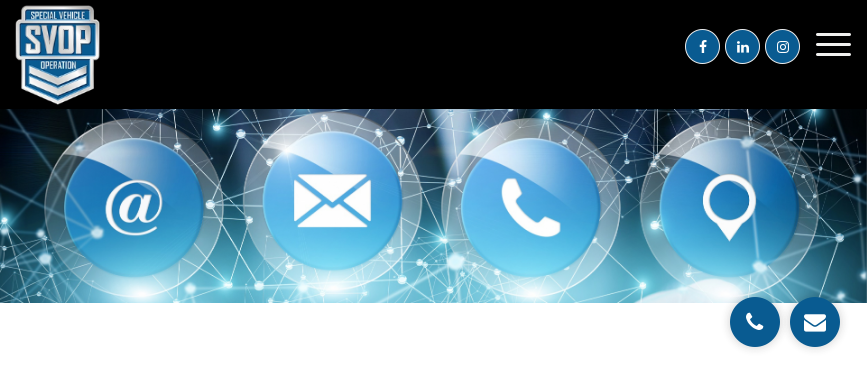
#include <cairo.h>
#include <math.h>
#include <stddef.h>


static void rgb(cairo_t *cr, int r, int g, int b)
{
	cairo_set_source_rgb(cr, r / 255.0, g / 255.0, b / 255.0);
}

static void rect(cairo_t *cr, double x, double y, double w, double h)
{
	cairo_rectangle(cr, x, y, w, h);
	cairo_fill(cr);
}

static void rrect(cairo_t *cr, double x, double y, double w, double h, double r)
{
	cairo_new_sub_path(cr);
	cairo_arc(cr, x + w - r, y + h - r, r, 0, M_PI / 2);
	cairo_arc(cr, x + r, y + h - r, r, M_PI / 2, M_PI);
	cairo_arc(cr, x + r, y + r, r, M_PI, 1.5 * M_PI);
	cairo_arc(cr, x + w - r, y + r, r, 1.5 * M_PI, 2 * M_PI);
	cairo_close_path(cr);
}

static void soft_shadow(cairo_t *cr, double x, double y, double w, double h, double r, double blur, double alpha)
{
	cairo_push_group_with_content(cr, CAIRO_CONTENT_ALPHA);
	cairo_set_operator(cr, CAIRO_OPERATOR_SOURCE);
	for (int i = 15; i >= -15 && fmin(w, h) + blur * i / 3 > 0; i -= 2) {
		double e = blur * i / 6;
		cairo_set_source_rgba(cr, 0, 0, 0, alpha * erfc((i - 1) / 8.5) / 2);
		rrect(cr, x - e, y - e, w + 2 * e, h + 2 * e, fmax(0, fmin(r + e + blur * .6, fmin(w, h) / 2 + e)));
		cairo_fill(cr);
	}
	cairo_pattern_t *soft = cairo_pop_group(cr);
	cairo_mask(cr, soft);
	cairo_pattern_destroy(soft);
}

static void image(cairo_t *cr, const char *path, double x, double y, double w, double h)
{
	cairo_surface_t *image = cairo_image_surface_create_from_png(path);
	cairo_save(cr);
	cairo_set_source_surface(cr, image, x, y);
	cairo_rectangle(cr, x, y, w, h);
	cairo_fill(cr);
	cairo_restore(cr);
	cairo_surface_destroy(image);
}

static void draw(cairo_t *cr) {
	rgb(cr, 255, 255, 255);
	cairo_paint(cr);
	rgb(cr, 0, 0, 0);
	rect(cr, 0, 0, 867, 109);
	image(cr, "image0.png", 15, 5, 85, 100);
	rgb(cr, 240, 240, 239);
	rrect(cr, 816, 43, 35, 3, 1.5);
	cairo_fill(cr);
	rrect(cr, 816, 33, 35, 3, 1.5);
	cairo_fill(cr);
	rrect(cr, 816, 53, 35, 3, 1.5);
	cairo_fill(cr);
	rgb(cr, 9, 91, 145);
	cairo_arc(cr, 702.5, 46.5, 17, 0, 2 * M_PI);
	cairo_fill_preserve(cr);
	rgb(cr, 235, 235, 235);
	cairo_set_line_width(cr, 1);
	cairo_stroke(cr);
	image(cr, "image1.png", 699, 40, 8, 13);
	rgb(cr, 9, 91, 145);
	cairo_arc(cr, 742.5, 46.5, 17, 0, 2 * M_PI);
	cairo_fill_preserve(cr);
	rgb(cr, 235, 235, 235);
	cairo_stroke(cr);
	image(cr, "image2.png", 737, 41, 12, 12);
	rgb(cr, 9, 91, 145);
	cairo_arc(cr, 782.5, 46.5, 17, 0, 2 * M_PI);
	cairo_fill_preserve(cr);
	rgb(cr, 235, 235, 235);
	cairo_stroke(cr);
	image(cr, "image3.png", 777, 41, 12, 12);
	image(cr, "image4.png", 0, 109, 867, 194);
	rgb(cr, 0, 0, 0);
	soft_shadow(cr, 729, 296, 52, 52, 26, 4.5, 0.15);
	rgb(cr, 9, 91, 145);
	cairo_arc(cr, 755, 322, 25, 0, 2 * M_PI);
	cairo_fill(cr);
	image(cr, "image5.png", 746, 312, 18, 18);
	rgb(cr, 0, 0, 0);
	soft_shadow(cr, 789, 296, 52, 52, 26, 4.5, 0.15);
	rgb(cr, 9, 91, 145);
	cairo_arc(cr, 815, 322, 25, 0, 2 * M_PI);
	cairo_fill(cr);
	image(cr, "image6.png", 804, 314, 22, 18);
}

int main(void) {
	cairo_surface_t *surface = cairo_image_surface_create(CAIRO_FORMAT_RGB24, 867, 377);
	cairo_t *cr = cairo_create(surface);
	cairo_font_options_t *options = cairo_font_options_create();
	cairo_font_options_set_hint_metrics(options, CAIRO_HINT_METRICS_OFF);
	cairo_font_options_set_hint_style(options, CAIRO_HINT_STYLE_NONE);
	cairo_set_font_options(cr, options);
	cairo_set_miter_limit(cr, 4);
	draw(cr);
	cairo_surface_write_to_png(surface, "render.png");
	cairo_font_options_destroy(options);
	cairo_destroy(cr);
	cairo_surface_destroy(surface);
	return 0;
}
